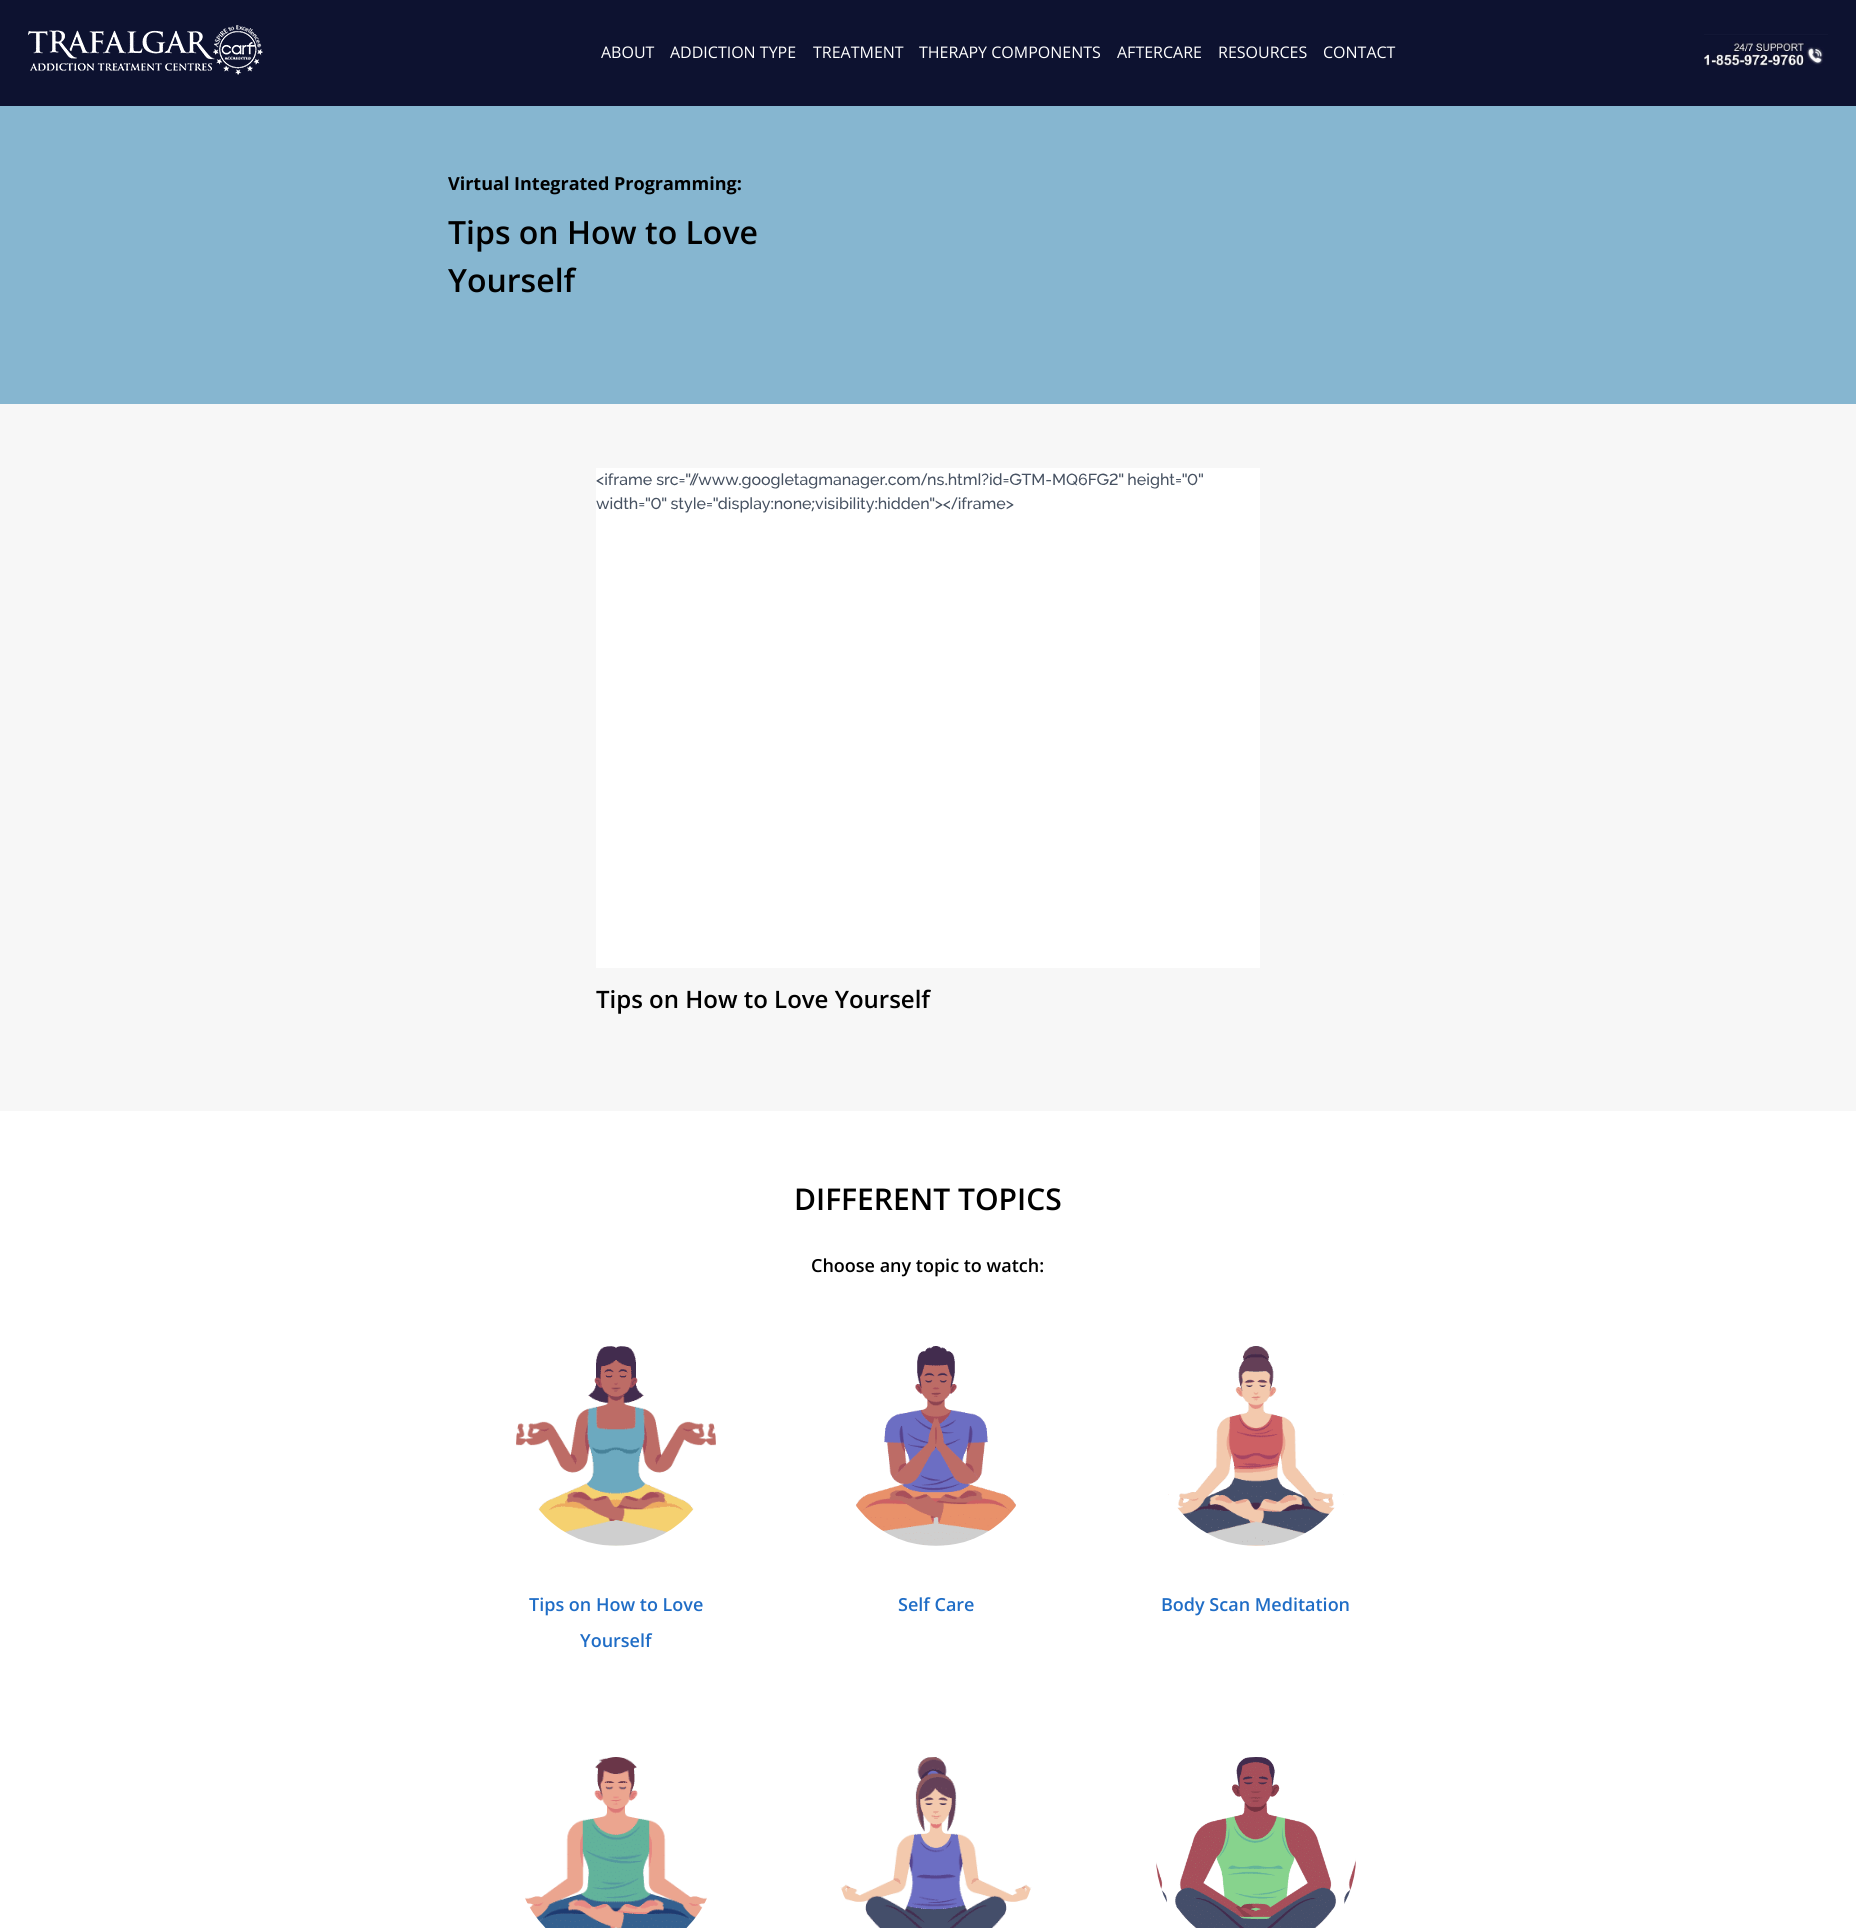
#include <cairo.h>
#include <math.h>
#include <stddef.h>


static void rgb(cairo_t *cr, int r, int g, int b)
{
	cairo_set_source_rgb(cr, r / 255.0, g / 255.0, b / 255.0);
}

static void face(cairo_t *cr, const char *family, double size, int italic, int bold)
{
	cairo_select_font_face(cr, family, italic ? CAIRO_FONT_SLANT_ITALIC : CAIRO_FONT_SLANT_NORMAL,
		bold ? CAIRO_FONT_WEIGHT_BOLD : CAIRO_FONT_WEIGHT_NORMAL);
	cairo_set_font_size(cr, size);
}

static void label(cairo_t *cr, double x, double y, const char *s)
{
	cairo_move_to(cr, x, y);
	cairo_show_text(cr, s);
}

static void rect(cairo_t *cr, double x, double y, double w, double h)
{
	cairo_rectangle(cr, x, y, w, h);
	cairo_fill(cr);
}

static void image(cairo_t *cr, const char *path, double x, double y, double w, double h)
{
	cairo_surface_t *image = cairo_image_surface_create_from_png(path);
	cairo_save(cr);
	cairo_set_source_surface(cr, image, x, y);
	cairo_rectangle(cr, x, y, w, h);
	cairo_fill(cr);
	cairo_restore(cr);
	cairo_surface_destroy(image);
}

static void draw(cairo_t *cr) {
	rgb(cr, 13, 18, 48);
	cairo_paint(cr);
	image(cr, "image0.png", 28, 25, 235, 50);
	face(cr, "Open Sans", 16, 0, 0);
	rgb(cr, 255, 255, 255);
	label(cr, 601, 58, "ABOUT");
	label(cr, 670, 58, "ADDICTION TYPE");
	label(cr, 813, 58, "TREATMENT");
	label(cr, 919, 58, "THERAPY COMPONENTS");
	label(cr, 1117, 58, "AFTERCARE");
	label(cr, 1218, 58, "RESOURCES");
	label(cr, 1323, 58, "CONTACT");
	image(cr, "image1.png", 1704, 34, 124, 32);
	rect(cr, 0, 1111, 1856, 817);
	rgb(cr, 134, 182, 208);
	rect(cr, 0, 106, 1856, 298);
	face(cr, "Open Sans", 18, 0, 1);
	rgb(cr, 0, 0, 0);
	label(cr, 448, 190, "Virtual Integrated Programming:");
	face(cr, "Open Sans SemiBold", 32, 0, 0);
	label(cr, 448, 244, "Tips on How to Love");
	label(cr, 448, 292, "Yourself");
	rgb(cr, 247, 247, 247);
	rect(cr, 0, 404, 1856, 707);
	image(cr, "image2.png", 596, 468, 664, 500);
	face(cr, "Open Sans SemiBold", 24, 0, 0);
	rgb(cr, 0, 0, 0);
	label(cr, 596, 1008, "Tips on How to Love Yourself");
	face(cr, "Open Sans SemiBold", 30, 0, 0);
	label(cr, 794, 1210, "DIFFERENT TOPICS");
	face(cr, "Open Sans SemiBold", 18, 0, 0);
	label(cr, 811, 1272, "Choose any topic to watch:");
	image(cr, "image3.png", 516, 1346, 200, 200);
	rgb(cr, 31, 109, 198);
	label(cr, 529, 1611, "Tips on How to Love");
	label(cr, 580, 1647, "Yourself");
	image(cr, "image4.png", 855, 1346, 161, 200);
	label(cr, 898, 1611, "Self Care");
	image(cr, "image5.png", 1168, 1346, 176, 200);
	label(cr, 1161, 1611, "Body Scan Meditation");
	image(cr, "image6.png", 525, 1757, 182, 171);
	image(cr, "image7.png", 840, 1757, 192, 171);
	image(cr, "image8.png", 1156, 1757, 200, 171);
}

int main(void) {
	cairo_surface_t *surface = cairo_image_surface_create(CAIRO_FORMAT_RGB24, 1856, 1928);
	cairo_t *cr = cairo_create(surface);
	cairo_font_options_t *options = cairo_font_options_create();
	cairo_font_options_set_hint_metrics(options, CAIRO_HINT_METRICS_OFF);
	cairo_font_options_set_hint_style(options, CAIRO_HINT_STYLE_NONE);
	cairo_set_font_options(cr, options);
	cairo_set_miter_limit(cr, 4);
	draw(cr);
	cairo_surface_write_to_png(surface, "render.png");
	cairo_font_options_destroy(options);
	cairo_destroy(cr);
	cairo_surface_destroy(surface);
	return 0;
}
